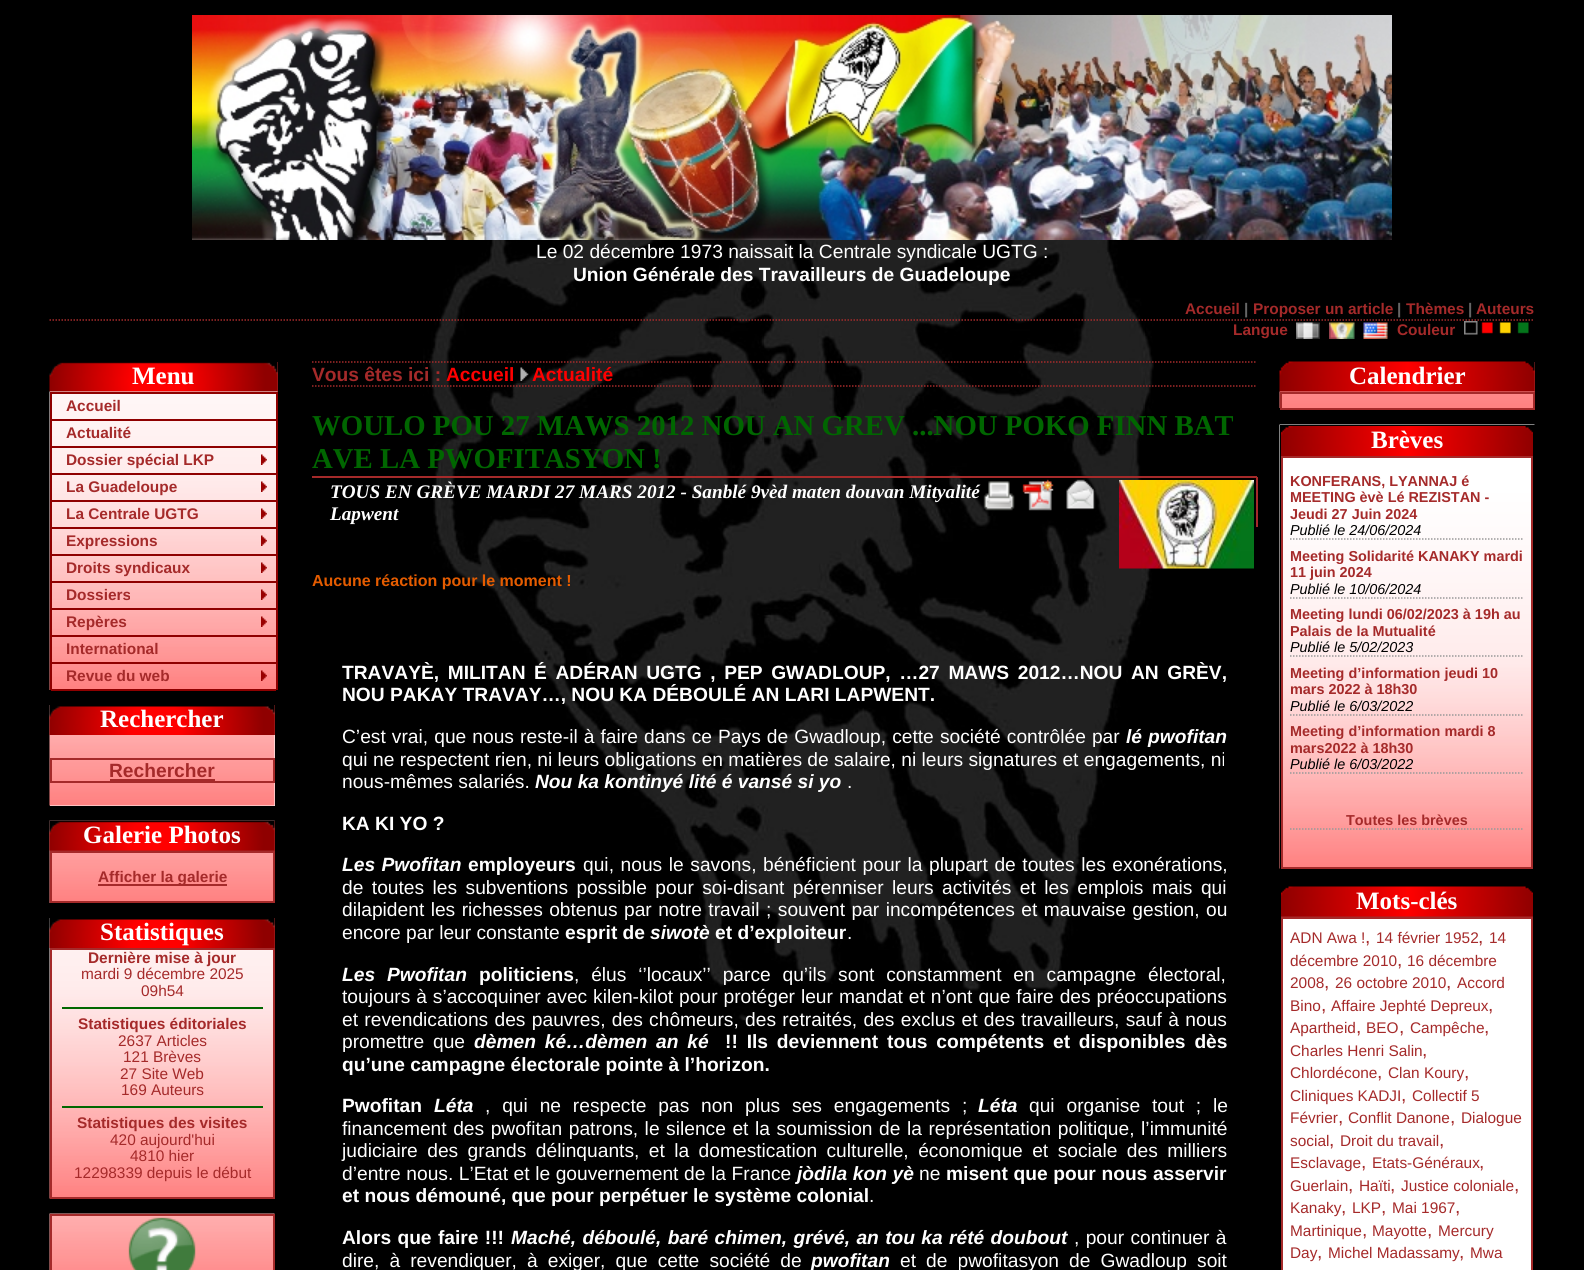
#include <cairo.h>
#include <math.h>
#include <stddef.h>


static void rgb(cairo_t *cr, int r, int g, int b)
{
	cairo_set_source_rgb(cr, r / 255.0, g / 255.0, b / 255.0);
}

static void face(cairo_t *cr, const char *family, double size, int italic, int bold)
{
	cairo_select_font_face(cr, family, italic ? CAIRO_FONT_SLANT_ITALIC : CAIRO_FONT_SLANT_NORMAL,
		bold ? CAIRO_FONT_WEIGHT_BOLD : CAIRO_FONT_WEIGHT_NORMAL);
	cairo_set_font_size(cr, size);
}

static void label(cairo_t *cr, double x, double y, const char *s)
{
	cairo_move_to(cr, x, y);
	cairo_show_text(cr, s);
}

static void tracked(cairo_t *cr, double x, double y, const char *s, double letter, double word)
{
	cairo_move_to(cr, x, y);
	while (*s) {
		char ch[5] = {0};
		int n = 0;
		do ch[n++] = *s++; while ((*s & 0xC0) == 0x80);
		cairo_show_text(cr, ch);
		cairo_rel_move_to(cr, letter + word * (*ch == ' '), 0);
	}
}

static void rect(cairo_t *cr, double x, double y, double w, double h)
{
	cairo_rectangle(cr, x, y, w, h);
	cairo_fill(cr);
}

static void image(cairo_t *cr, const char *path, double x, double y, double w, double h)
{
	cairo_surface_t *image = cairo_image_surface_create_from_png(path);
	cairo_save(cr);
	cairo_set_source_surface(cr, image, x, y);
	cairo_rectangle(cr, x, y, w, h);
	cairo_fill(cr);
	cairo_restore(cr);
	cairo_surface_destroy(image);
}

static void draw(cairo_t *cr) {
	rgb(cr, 0, 0, 0);
	cairo_paint(cr);
	image(cr, "image0.png", 423, 240, 731, 781);
	image(cr, "image1.png", 192, 15, 1200, 225);
	face(cr, "Liberation Sans", 19.2, 0, 0);
	rgb(cr, 255, 255, 255);
	label(cr, 536, 258, "Le 02 décembre 1973 naissait la Centrale syndicale UGTG :");
	face(cr, "Liberation Sans", 19.2, 0, 1);
	label(cr, 573, 281, "Union Générale des Travailleurs de Guadeloupe");
	cairo_new_path(cr);
	cairo_move_to(cr, 49.5, 320);
	cairo_line_to(cr, 1534.5, 320);
	rgb(cr, 165, 42, 42);
	cairo_set_line_width(cr, 1.5);
	cairo_set_dash(cr, (double[]){1.5, 1.5}, 2, 0);
	cairo_stroke(cr);
	face(cr, "Liberation Sans", 15.4, 0, 1);
	label(cr, 1185, 314, "Accueil");
	rgb(cr, 102, 102, 102);
	label(cr, 1244, 314, "|");
	rgb(cr, 165, 42, 42);
	label(cr, 1253, 314, "Proposer un article");
	rgb(cr, 102, 102, 102);
	label(cr, 1397, 314, "|");
	rgb(cr, 165, 42, 42);
	label(cr, 1406, 314, "Thèmes");
	rgb(cr, 102, 102, 102);
	label(cr, 1468, 314, "|");
	rgb(cr, 165, 42, 42);
	label(cr, 1476, 314, "Auteurs");
	label(cr, 1233, 335, "Langue");
	image(cr, "image2.png", 1296, 322, 24, 17);
	image(cr, "image3.png", 1329, 322, 26, 17);
	image(cr, "image4.png", 1363, 322, 25, 17);
	label(cr, 1397, 335, "Couleur");
	image(cr, "image5.png", 1464, 321, 14, 14);
	image(cr, "image6.png", 1481, 322, 12, 12);
	image(cr, "image7.png", 1499, 322, 12, 12);
	image(cr, "image8.png", 1517, 322, 12, 12);
	rect(cr, 50, 362, 228, 30);
	image(cr, "image9.png", 49, 362, 229, 30);
	face(cr, "Liberation Serif", 25, 0, 1);
	rgb(cr, 255, 255, 255);
	label(cr, 132, 384, "Menu");
	image(cr, "image10.png", 49, 391, 229, 299);
	rgb(cr, 143, 0, 0);
	rect(cr, 50, 392, 228, 2);
	rect(cr, 276, 392, 2, 298);
	rect(cr, 50, 392, 2, 298);
	rect(cr, 51, 419, 225, 2);
	face(cr, "Liberation Sans", 15.4, 0, 1);
	rgb(cr, 165, 42, 42);
	label(cr, 66, 411, "Accueil");
	rgb(cr, 143, 0, 0);
	rect(cr, 51, 446, 225, 2);
	rgb(cr, 165, 42, 42);
	label(cr, 66, 438, "Actualité");
	image(cr, "image11.png", 261, 454, 6, 11);
	rgb(cr, 143, 0, 0);
	rect(cr, 51, 473, 225, 2);
	rgb(cr, 165, 42, 42);
	label(cr, 66, 465, "Dossier spécial LKP");
	image(cr, "image12.png", 261, 481, 6, 11);
	rgb(cr, 143, 0, 0);
	rect(cr, 51, 500, 225, 2);
	rgb(cr, 165, 42, 42);
	label(cr, 66, 492, "La Guadeloupe");
	image(cr, "image13.png", 261, 508, 6, 11);
	rgb(cr, 143, 0, 0);
	rect(cr, 51, 527, 225, 2);
	rgb(cr, 165, 42, 42);
	label(cr, 66, 519, "La Centrale UGTG");
	image(cr, "image14.png", 261, 535, 6, 11);
	rgb(cr, 143, 0, 0);
	rect(cr, 51, 554, 225, 2);
	rgb(cr, 165, 42, 42);
	label(cr, 66, 546, "Expressions");
	image(cr, "image15.png", 261, 562, 6, 11);
	rgb(cr, 143, 0, 0);
	rect(cr, 51, 581, 225, 2);
	rgb(cr, 165, 42, 42);
	label(cr, 66, 573, "Droits syndicaux");
	image(cr, "image16.png", 261, 589, 6, 11);
	rgb(cr, 143, 0, 0);
	rect(cr, 51, 608, 225, 2);
	rgb(cr, 165, 42, 42);
	label(cr, 66, 600, "Dossiers");
	image(cr, "image17.png", 261, 616, 6, 11);
	rgb(cr, 143, 0, 0);
	rect(cr, 51, 635, 225, 2);
	rgb(cr, 165, 42, 42);
	label(cr, 66, 627, "Repères");
	rgb(cr, 143, 0, 0);
	rect(cr, 51, 662, 225, 2);
	rgb(cr, 165, 42, 42);
	label(cr, 66, 654, "International");
	image(cr, "image18.png", 261, 670, 6, 11);
	rgb(cr, 143, 0, 0);
	rect(cr, 51, 689, 225, 2);
	rgb(cr, 165, 42, 42);
	label(cr, 66, 681, "Revue du web");
	rgb(cr, 255, 255, 255);
	rect(cr, 50, 735, 225, 71);
	image(cr, "image19.png", 49, 705, 226, 101);
	rgb(cr, 165, 42, 42);
	rect(cr, 274, 705, 1, 30);
	image(cr, "image20.png", 49, 705, 226, 30);
	face(cr, "Liberation Serif", 25, 0, 1);
	rgb(cr, 255, 255, 255);
	label(cr, 100, 727, "Rechercher");
	cairo_rectangle(cr, 51, 759, 223, 23);
	rgb(cr, 165, 42, 42);
	cairo_set_line_width(cr, 2);
	cairo_set_dash(cr, NULL, 0, 0);
	cairo_stroke(cr);
	face(cr, "Liberation Sans", 19.2, 0, 1);
	label(cr, 109, 777, "Rechercher");
	rect(cr, 110, 779, 105, 2);
	image(cr, "image21.png", 49, 820, 226, 83);
	rect(cr, 50, 821, 225, 30);
	image(cr, "image22.png", 49, 820, 226, 31);
	face(cr, "Liberation Serif", 25, 0, 1);
	rgb(cr, 255, 255, 255);
	label(cr, 83, 843, "Galerie Photos");
	cairo_rectangle(cr, 51, 852, 223, 50);
	rgb(cr, 165, 42, 42);
	cairo_stroke(cr);
	rect(cr, 98, 884, 129, 2);
	face(cr, "Liberation Sans", 15.4, 0, 1);
	label(cr, 98, 882, "Afficher la galerie");
	image(cr, "image23.png", 49, 918, 224, 281);
	rect(cr, 274, 918, 1, 30);
	image(cr, "image24.png", 49, 918, 226, 30);
	face(cr, "Liberation Serif", 25, 0, 1);
	rgb(cr, 255, 255, 255);
	label(cr, 100, 940, "Statistiques");
	cairo_rectangle(cr, 51, 949, 223, 249);
	rgb(cr, 165, 42, 42);
	cairo_stroke(cr);
	face(cr, "Liberation Sans", 15.4, 0, 1);
	label(cr, 88, 963, "Dernière mise à jour");
	face(cr, "Liberation Sans", 15.4, 0, 0);
	label(cr, 81, 979, "mardi 9 décembre 2025");
	label(cr, 141, 996, "09h54");
	rgb(cr, 2, 103, 0);
	rect(cr, 62, 1007, 201, 2);
	face(cr, "Liberation Sans", 15.4, 0, 1);
	rgb(cr, 165, 42, 42);
	label(cr, 78, 1029, "Statistiques éditoriales");
	face(cr, "Liberation Sans", 15.4, 0, 0);
	label(cr, 118, 1046, "2637 Articles");
	label(cr, 123, 1062, "121 Brèves");
	label(cr, 120, 1079, "27 Site Web");
	label(cr, 121, 1095, "169 Auteurs");
	rgb(cr, 2, 103, 0);
	rect(cr, 62, 1106, 201, 2);
	face(cr, "Liberation Sans", 15.4, 0, 1);
	rgb(cr, 165, 42, 42);
	label(cr, 77, 1128, "Statistiques des visites");
	face(cr, "Liberation Sans", 15.4, 0, 0);
	label(cr, 110, 1145, "420 aujourd'hui");
	label(cr, 130, 1161, "4810 hier");
	label(cr, 74, 1178, "12298339 depuis le début");
	image(cr, "image25.png", 49, 1213, 226, 57);
	cairo_rectangle(cr, 51, 1215, 223, 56);
	cairo_stroke(cr);
	image(cr, "image26.png", 128, 1217, 68, 53);
	cairo_new_path(cr);
	cairo_move_to(cr, 312, 362);
	cairo_line_to(cr, 1257, 362);
	cairo_set_line_width(cr, 1.5);
	cairo_set_dash(cr, (double[]){1.5, 1.5}, 2, 0);
	cairo_stroke(cr);
	cairo_new_path(cr);
	cairo_move_to(cr, 312, 386);
	cairo_line_to(cr, 1257, 386);
	cairo_stroke(cr);
	face(cr, "Liberation Sans", 19.2, 0, 1);
	label(cr, 312, 381, "Vous êtes ici :");
	rgb(cr, 255, 0, 0);
	label(cr, 446, 381, "Accueil");
	image(cr, "image27.png", 520, 367, 9, 14);
	label(cr, 532, 381, "Actualité");
	rgb(cr, 165, 42, 42);
	rect(cr, 312, 476, 945, 2);
	face(cr, "Liberation Serif", 28.8, 0, 1);
	rgb(cr, 0, 102, 0);
	label(cr, 312, 435, "WOULO POU 27 MAWS 2012 NOU AN GREV ...NOU POKO FINN BAT");
	label(cr, 312, 468, "AVE LA PWOFITASYON !");
	rgb(cr, 165, 42, 42);
	rect(cr, 1256, 477, 2, 50);
	face(cr, "Liberation Serif", 19.2, 1, 1);
	rgb(cr, 255, 255, 255);
	label(cr, 330, 498, "TOUS EN GRÈVE MARDI 27 MARS 2012 - Sanblé 9vèd maten douvan Mityalité");
	label(cr, 330, 520, "Lapwent");
	image(cr, "image28.png", 983, 481, 32, 30);
	image(cr, "image29.png", 1022, 479, 32, 32);
	image(cr, "image30.png", 1066, 479, 30, 31);
	image(cr, "image31.png", 1119, 480, 135, 89);
	face(cr, "Liberation Sans", 16, 0, 1);
	rgb(cr, 229, 92, 0);
	label(cr, 312, 586, "Aucune réaction pour le moment !");
	face(cr, "Liberation Sans", 19.2, 0, 1);
	rgb(cr, 255, 255, 255);
	tracked(cr, 342, 679, "TRAVAYÈ, MILITAN É ADÉRAN UGTG , PEP GWADLOUP, …27 MAWS 2012…NOU AN GRÈV,", 0, 3.25);
	label(cr, 342, 701, "NOU PAKAY TRAVAY…, NOU KA DÉBOULÉ AN LARI LAPWENT.");
	face(cr, "Liberation Sans", 19.2, 0, 0);
	tracked(cr, 342, 743, "C’est vrai, que nous reste-il à faire dans ce Pays de Gwadloup, cette société contrôlée par", 0, 0.75);
	face(cr, "Liberation Sans", 19.2, 1, 1);
	tracked(cr, 1126, 743, "lé pwofitan", 0, 0.75);
	face(cr, "Liberation Sans", 19.2, 0, 0);
	label(cr, 342, 766, "qui ne respectent rien, ni leurs obligations en matières de salaire, ni leurs signatures et engagements, ni");
	label(cr, 342, 788, "nous-mêmes salariés.");
	face(cr, "Liberation Sans", 19.2, 1, 1);
	label(cr, 535, 788, "Nou ka kontinyé lité é vansé si yo");
	face(cr, "Liberation Sans", 19.2, 0, 0);
	label(cr, 847, 788, ".");
	face(cr, "Liberation Sans", 19.2, 0, 1);
	label(cr, 342, 830, "KA KI YO ?");
	face(cr, "Liberation Sans", 19.2, 1, 1);
	tracked(cr, 342, 871, "Les Pwofitan", 0, 1);
	face(cr, "Liberation Sans", 19.2, 0, 1);
	label(cr, 468, 871, "employeurs");
	face(cr, "Liberation Sans", 19.2, 0, 0);
	tracked(cr, 583, 871, "qui, nous le savons, bénéficient pour la plupart de toutes les exonérations,", 0, 1.25);
	tracked(cr, 342, 894, "de toutes les subventions possible pour soi-disant pérenniser leurs activités et les emplois mais qui", 0, 3.1);
	tracked(cr, 342, 916, "dilapident les richesses obtenus par notre travail ; souvent par incompétences et mauvaise gestion, ou", 0, 1.1);
	label(cr, 342, 939, "encore par leur constante");
	face(cr, "Liberation Sans", 19.2, 0, 1);
	label(cr, 565, 939, "esprit de");
	face(cr, "Liberation Sans", 19.2, 1, 1);
	label(cr, 650, 939, "siwotè");
	face(cr, "Liberation Sans", 19.2, 0, 1);
	label(cr, 715, 939, "et d’exploiteur");
	face(cr, "Liberation Sans", 19.2, 0, 0);
	label(cr, 847, 939, ".");
	face(cr, "Liberation Sans", 19.2, 1, 1);
	tracked(cr, 342, 981, "Les Pwofitan", 0, 6.5);
	face(cr, "Liberation Sans", 19.2, 0, 1);
	label(cr, 479, 981, "politiciens");
	face(cr, "Liberation Sans", 19.2, 0, 0);
	tracked(cr, 574, 981, ", élus ‘’locaux’’ parce qu’ils sont constamment en campagne électoral,", 0, 6.5);
	tracked(cr, 342, 1003, "toujours à s’accoquiner avec kilen-kilot pour protéger leur mandat et n’ont que faire des préoccupations", 0, 0.6);
	tracked(cr, 342, 1026, "et revendications des pauvres, des chômeurs, des retraités, des exclus et des travailleurs, sauf à nous", 0, 1);
	tracked(cr, 342, 1048, "promettre que", 0, 3.5);
	face(cr, "Liberation Sans", 19.2, 1, 1);
	tracked(cr, 474, 1048, "dèmen ké…dèmen an ké", 0, 3.5);
	face(cr, "Liberation Sans", 19.2, 0, 1);
	tracked(cr, 725, 1048, "!! Ils deviennent tous compétents et disponibles dès", 0, 3.5);
	label(cr, 342, 1071, "qu’une campagne électorale pointe à l’horizon.");
	label(cr, 342, 1112, "Pwofitan");
	face(cr, "Liberation Sans", 19.2, 1, 1);
	label(cr, 434, 1112, "Léta");
	face(cr, "Liberation Sans", 19.2, 0, 0);
	tracked(cr, 485, 1112, ", qui ne respecte pas non plus ses engagements ;", 0, 6.5);
	face(cr, "Liberation Sans", 19.2, 1, 1);
	label(cr, 978, 1112, "Léta");
	face(cr, "Liberation Sans", 19.2, 0, 0);
	tracked(cr, 1029, 1112, "qui organise tout ; le", 0, 6.5);
	tracked(cr, 342, 1135, "financement des pwofitan patrons, le silence et la soumission de la représentation politique, l’immunité", 0, 1.2);
	tracked(cr, 342, 1157, "judiciaire des grands délinquants, et la domestication culturelle, économique et sociale des milliers", 0, 4.1);
	tracked(cr, 342, 1180, "d’entre nous. L’Etat et le gouvernement de la France", 0, 0.25);
	face(cr, "Liberation Sans", 19.2, 1, 1);
	tracked(cr, 797, 1180, "jòdila kon yè", 0, 0.25);
	face(cr, "Liberation Sans", 19.2, 0, 0);
	label(cr, 919, 1180, "ne");
	face(cr, "Liberation Sans", 19.2, 0, 1);
	tracked(cr, 946, 1180, "misent que pour nous asservir", 0, 0.25);
	label(cr, 342, 1202, "et nous démouné, que pour perpétuer le système colonial");
	face(cr, "Liberation Sans", 19.2, 0, 0);
	label(cr, 869, 1202, ".");
	face(cr, "Liberation Sans", 19.2, 0, 1);
	tracked(cr, 342, 1244, "Alors que faire !!!", 0, 1);
	face(cr, "Liberation Sans", 19.2, 1, 1);
	tracked(cr, 511, 1244, "Maché, déboulé, baré chimen, grévé, an tou ka rété doubout", 0, 1);
	face(cr, "Liberation Sans", 19.2, 0, 0);
	tracked(cr, 1074, 1244, ", pour continuer à", 0, 1);
	tracked(cr, 342, 1267, "dire, à revendiquer, à exiger, que cette société de", 0, 4.75);
	face(cr, "Liberation Sans", 19.2, 1, 1);
	label(cr, 811, 1267, "pwofitan");
	face(cr, "Liberation Sans", 19.2, 0, 0);
	tracked(cr, 900, 1267, "et de pwofitasyon de Gwadloup soit", 0, 4.75);
	rgb(cr, 165, 42, 42);
	rect(cr, 1280, 362, 255, 30);
	image(cr, "image32.png", 1279, 361, 256, 31);
	face(cr, "Liberation Serif", 25, 0, 1);
	rgb(cr, 255, 255, 255);
	label(cr, 1349, 384, "Calendrier");
	image(cr, "image33.png", 1279, 391, 256, 17);
	cairo_rectangle(cr, 1281, 393, 253, 16);
	rgb(cr, 165, 42, 42);
	cairo_set_line_width(cr, 2);
	cairo_set_dash(cr, NULL, 0, 0);
	cairo_stroke(cr);
	image(cr, "image34.png", 1279, 424, 256, 445);
	cairo_rectangle(cr, 1281, 426, 253, 443);
	rgb(cr, 0, 0, 0);
	cairo_stroke(cr);
	image(cr, "image35.png", 1281, 426, 252, 30);
	rgb(cr, 255, 255, 255);
	label(cr, 1371, 448, "Brèves");
	cairo_rectangle(cr, 1282, 457, 250, 411);
	rgb(cr, 165, 42, 42);
	cairo_stroke(cr);
	cairo_new_path(cr);
	cairo_move_to(cr, 1290, 539);
	cairo_line_to(cr, 1524, 539);
	rgb(cr, 153, 153, 153);
	cairo_set_line_width(cr, 1.5);
	cairo_set_dash(cr, (double[]){1.5, 1.5}, 2, 0);
	cairo_stroke(cr);
	face(cr, "Liberation Sans", 14.4, 0, 1);
	rgb(cr, 165, 42, 42);
	label(cr, 1290, 486, "KONFERANS, LYANNAJ é");
	label(cr, 1290, 502, "MEETING èvè Lé REZISTAN -");
	label(cr, 1290, 519, "Jeudi 27 Juin 2024");
	face(cr, "Liberation Sans", 14.4, 1, 0);
	rgb(cr, 0, 0, 0);
	label(cr, 1290, 535, "Publié le 24/06/2024");
	cairo_new_path(cr);
	cairo_move_to(cr, 1290, 598);
	cairo_line_to(cr, 1524, 598);
	rgb(cr, 153, 153, 153);
	cairo_stroke(cr);
	face(cr, "Liberation Sans", 14.4, 0, 1);
	rgb(cr, 165, 42, 42);
	label(cr, 1290, 561, "Meeting Solidarité KANAKY mardi");
	label(cr, 1290, 577, "11 juin 2024");
	face(cr, "Liberation Sans", 14.4, 1, 0);
	rgb(cr, 0, 0, 0);
	label(cr, 1290, 594, "Publié le 10/06/2024");
	cairo_new_path(cr);
	cairo_move_to(cr, 1290, 656);
	cairo_line_to(cr, 1524, 656);
	rgb(cr, 153, 153, 153);
	cairo_stroke(cr);
	face(cr, "Liberation Sans", 14.4, 0, 1);
	rgb(cr, 165, 42, 42);
	label(cr, 1290, 619, "Meeting lundi 06/02/2023 à 19h au");
	label(cr, 1290, 636, "Palais de la Mutualité");
	face(cr, "Liberation Sans", 14.4, 1, 0);
	rgb(cr, 0, 0, 0);
	label(cr, 1290, 652, "Publié le 5/02/2023");
	cairo_new_path(cr);
	cairo_move_to(cr, 1290, 715);
	cairo_line_to(cr, 1524, 715);
	rgb(cr, 153, 153, 153);
	cairo_stroke(cr);
	face(cr, "Liberation Sans", 14.4, 0, 1);
	rgb(cr, 165, 42, 42);
	label(cr, 1290, 678, "Meeting d’information jeudi 10");
	label(cr, 1290, 694, "mars 2022 à 18h30");
	face(cr, "Liberation Sans", 14.4, 1, 0);
	rgb(cr, 0, 0, 0);
	label(cr, 1290, 711, "Publié le 6/03/2022");
	cairo_new_path(cr);
	cairo_move_to(cr, 1290, 773);
	cairo_line_to(cr, 1524, 773);
	rgb(cr, 153, 153, 153);
	cairo_stroke(cr);
	face(cr, "Liberation Sans", 14.4, 0, 1);
	rgb(cr, 165, 42, 42);
	label(cr, 1290, 736, "Meeting d’information mardi 8");
	label(cr, 1290, 753, "mars2022 à 18h30");
	face(cr, "Liberation Sans", 14.4, 1, 0);
	rgb(cr, 0, 0, 0);
	label(cr, 1290, 769, "Publié le 6/03/2022");
	cairo_new_path(cr);
	cairo_move_to(cr, 1290, 829);
	cairo_line_to(cr, 1524, 829);
	rgb(cr, 153, 153, 153);
	cairo_stroke(cr);
	face(cr, "Liberation Sans", 14.4, 0, 1);
	rgb(cr, 165, 42, 42);
	label(cr, 1346, 825, "Toutes les brèves");
	rect(cr, 1281, 916, 252, 1);
	image(cr, "image36.png", 1281, 886, 252, 31);
	face(cr, "Liberation Serif", 25, 0, 1);
	rgb(cr, 255, 255, 255);
	label(cr, 1356, 909, "Mots-clés");
	cairo_rectangle(cr, 1282, 918, 250, 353);
	cairo_fill_preserve(cr);
	rgb(cr, 165, 42, 42);
	cairo_set_line_width(cr, 2);
	cairo_set_dash(cr, NULL, 0, 0);
	cairo_stroke(cr);
	face(cr, "Liberation Sans", 15.4, 0, 0);
	label(cr, 1290, 943, "ADN Awa !");
	face(cr, "Liberation Sans", 19.2, 0, 0);
	label(cr, 1365, 943, ",");
	face(cr, "Liberation Sans", 15.4, 0, 0);
	label(cr, 1376, 943, "14 février 1952");
	face(cr, "Liberation Sans", 19.2, 0, 0);
	label(cr, 1478, 943, ",");
	face(cr, "Liberation Sans", 15.4, 0, 0);
	label(cr, 1489, 943, "14");
	label(cr, 1290, 966, "décembre 2010");
	face(cr, "Liberation Sans", 19.2, 0, 0);
	label(cr, 1397, 966, ",");
	face(cr, "Liberation Sans", 15.4, 0, 0);
	label(cr, 1407, 966, "16 décembre");
	label(cr, 1290, 988, "2008");
	face(cr, "Liberation Sans", 19.2, 0, 0);
	label(cr, 1324, 988, ",");
	face(cr, "Liberation Sans", 15.4, 0, 0);
	label(cr, 1335, 988, "26 octobre 2010");
	face(cr, "Liberation Sans", 19.2, 0, 0);
	label(cr, 1446, 988, ",");
	face(cr, "Liberation Sans", 15.4, 0, 0);
	label(cr, 1457, 988, "Accord");
	label(cr, 1290, 1011, "Bino");
	face(cr, "Liberation Sans", 19.2, 0, 0);
	label(cr, 1321, 1011, ",");
	face(cr, "Liberation Sans", 15.4, 0, 0);
	label(cr, 1331, 1011, "Affaire Jephté Depreux");
	face(cr, "Liberation Sans", 19.2, 0, 0);
	label(cr, 1488, 1011, ",");
	face(cr, "Liberation Sans", 15.4, 0, 0);
	label(cr, 1290, 1033, "Apartheid");
	face(cr, "Liberation Sans", 19.2, 0, 0);
	label(cr, 1356, 1033, ",");
	face(cr, "Liberation Sans", 15.4, 0, 0);
	label(cr, 1366, 1033, "BEO");
	face(cr, "Liberation Sans", 19.2, 0, 0);
	label(cr, 1399, 1033, ",");
	face(cr, "Liberation Sans", 15.4, 0, 0);
	label(cr, 1410, 1033, "Campêche");
	face(cr, "Liberation Sans", 19.2, 0, 0);
	label(cr, 1484, 1033, ",");
	face(cr, "Liberation Sans", 15.4, 0, 0);
	label(cr, 1290, 1056, "Charles Henri Salin");
	face(cr, "Liberation Sans", 19.2, 0, 0);
	label(cr, 1422, 1056, ",");
	face(cr, "Liberation Sans", 15.4, 0, 0);
	label(cr, 1290, 1078, "Chlordécone");
	face(cr, "Liberation Sans", 19.2, 0, 0);
	label(cr, 1377, 1078, ",");
	face(cr, "Liberation Sans", 15.4, 0, 0);
	label(cr, 1388, 1078, "Clan Koury");
	face(cr, "Liberation Sans", 19.2, 0, 0);
	label(cr, 1464, 1078, ",");
	face(cr, "Liberation Sans", 15.4, 0, 0);
	label(cr, 1290, 1101, "Cliniques KADJI");
	face(cr, "Liberation Sans", 19.2, 0, 0);
	label(cr, 1401, 1101, ",");
	face(cr, "Liberation Sans", 15.4, 0, 0);
	label(cr, 1412, 1101, "Collectif 5");
	label(cr, 1290, 1123, "Février");
	face(cr, "Liberation Sans", 19.2, 0, 0);
	label(cr, 1338, 1123, ",");
	face(cr, "Liberation Sans", 15.4, 0, 0);
	label(cr, 1348, 1123, "Conflit Danone");
	face(cr, "Liberation Sans", 19.2, 0, 0);
	label(cr, 1450, 1123, ",");
	face(cr, "Liberation Sans", 15.4, 0, 0);
	label(cr, 1461, 1123, "Dialogue");
	label(cr, 1290, 1146, "social");
	face(cr, "Liberation Sans", 19.2, 0, 0);
	label(cr, 1329, 1146, ",");
	face(cr, "Liberation Sans", 15.4, 0, 0);
	label(cr, 1340, 1146, "Droit du travail");
	face(cr, "Liberation Sans", 19.2, 0, 0);
	label(cr, 1439, 1146, ",");
	face(cr, "Liberation Sans", 15.4, 0, 0);
	label(cr, 1290, 1168, "Esclavage");
	face(cr, "Liberation Sans", 19.2, 0, 0);
	label(cr, 1361, 1168, ",");
	face(cr, "Liberation Sans", 15.4, 0, 0);
	label(cr, 1372, 1168, "Etats-Généraux");
	face(cr, "Liberation Sans", 19.2, 0, 0);
	label(cr, 1479, 1168, ",");
	face(cr, "Liberation Sans", 15.4, 0, 0);
	label(cr, 1290, 1191, "Guerlain");
	face(cr, "Liberation Sans", 19.2, 0, 0);
	label(cr, 1348, 1191, ",");
	face(cr, "Liberation Sans", 15.4, 0, 0);
	label(cr, 1359, 1191, "Haïti");
	face(cr, "Liberation Sans", 19.2, 0, 0);
	label(cr, 1390, 1191, ",");
	face(cr, "Liberation Sans", 15.4, 0, 0);
	label(cr, 1401, 1191, "Justice coloniale");
	face(cr, "Liberation Sans", 19.2, 0, 0);
	label(cr, 1514, 1191, ",");
	face(cr, "Liberation Sans", 15.4, 0, 0);
	label(cr, 1290, 1213, "Kanaky");
	face(cr, "Liberation Sans", 19.2, 0, 0);
	label(cr, 1341, 1213, ",");
	face(cr, "Liberation Sans", 15.4, 0, 0);
	label(cr, 1352, 1213, "LKP");
	face(cr, "Liberation Sans", 19.2, 0, 0);
	label(cr, 1381, 1213, ",");
	face(cr, "Liberation Sans", 15.4, 0, 0);
	label(cr, 1392, 1213, "Mai 1967");
	face(cr, "Liberation Sans", 19.2, 0, 0);
	label(cr, 1455, 1213, ",");
	face(cr, "Liberation Sans", 15.4, 0, 0);
	label(cr, 1290, 1236, "Martinique");
	face(cr, "Liberation Sans", 19.2, 0, 0);
	label(cr, 1362, 1236, ",");
	face(cr, "Liberation Sans", 15.4, 0, 0);
	label(cr, 1372, 1236, "Mayotte");
	face(cr, "Liberation Sans", 19.2, 0, 0);
	label(cr, 1427, 1236, ",");
	face(cr, "Liberation Sans", 15.4, 0, 0);
	label(cr, 1438, 1236, "Mercury");
	label(cr, 1290, 1258, "Day");
	face(cr, "Liberation Sans", 19.2, 0, 0);
	label(cr, 1317, 1258, ",");
	face(cr, "Liberation Sans", 15.4, 0, 0);
	label(cr, 1328, 1258, "Michel Madassamy");
	face(cr, "Liberation Sans", 19.2, 0, 0);
	label(cr, 1459, 1258, ",");
	face(cr, "Liberation Sans", 15.4, 0, 0);
	label(cr, 1470, 1258, "Mwa");
}

int main(void) {
	cairo_surface_t *surface = cairo_image_surface_create(CAIRO_FORMAT_RGB24, 1584, 1270);
	cairo_t *cr = cairo_create(surface);
	cairo_font_options_t *options = cairo_font_options_create();
	cairo_font_options_set_hint_metrics(options, CAIRO_HINT_METRICS_OFF);
	cairo_font_options_set_hint_style(options, CAIRO_HINT_STYLE_NONE);
	cairo_set_font_options(cr, options);
	cairo_set_miter_limit(cr, 4);
	draw(cr);
	cairo_surface_write_to_png(surface, "render.png");
	cairo_font_options_destroy(options);
	cairo_destroy(cr);
	cairo_surface_destroy(surface);
	return 0;
}
